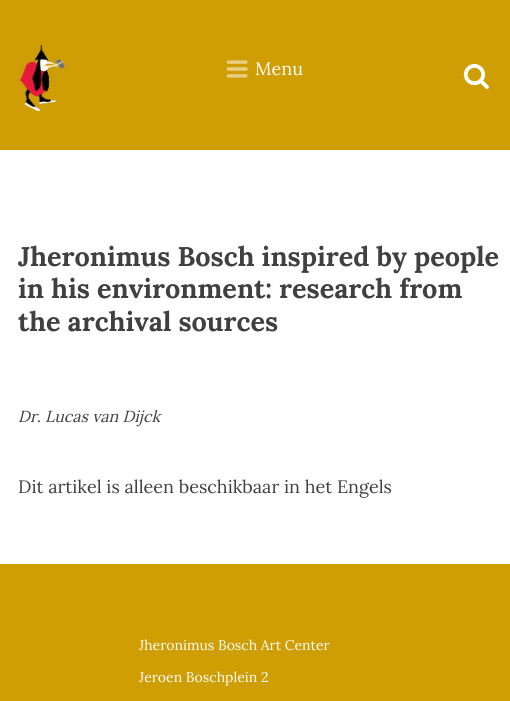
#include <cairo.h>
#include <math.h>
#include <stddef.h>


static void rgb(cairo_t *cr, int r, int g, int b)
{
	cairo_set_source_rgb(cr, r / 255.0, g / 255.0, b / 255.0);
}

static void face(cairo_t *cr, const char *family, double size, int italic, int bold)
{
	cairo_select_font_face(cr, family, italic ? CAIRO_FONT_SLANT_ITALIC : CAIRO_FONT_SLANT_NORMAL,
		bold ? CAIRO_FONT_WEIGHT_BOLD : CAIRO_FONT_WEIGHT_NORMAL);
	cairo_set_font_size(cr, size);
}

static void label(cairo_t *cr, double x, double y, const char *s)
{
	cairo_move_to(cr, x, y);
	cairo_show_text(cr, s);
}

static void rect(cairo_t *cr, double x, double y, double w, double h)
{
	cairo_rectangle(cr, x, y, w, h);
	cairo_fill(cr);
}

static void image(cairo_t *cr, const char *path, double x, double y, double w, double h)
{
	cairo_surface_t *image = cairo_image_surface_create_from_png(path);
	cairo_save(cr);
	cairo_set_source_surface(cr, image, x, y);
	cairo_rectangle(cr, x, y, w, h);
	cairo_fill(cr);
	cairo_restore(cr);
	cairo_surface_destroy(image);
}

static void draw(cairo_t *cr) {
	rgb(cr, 255, 255, 255);
	cairo_paint(cr);
	rgb(cr, 207, 157, 4);
	rect(cr, 0, 0, 510, 150);
	image(cr, "image0.png", 20, 45, 45, 66);
	image(cr, "image1.png", 226, 60, 22, 18);
	face(cr, "Lora", 18, 0, 0);
	rgb(cr, 255, 255, 255);
	label(cr, 255, 75, "Menu");
	image(cr, "image2.png", 463, 63, 26, 26);
	face(cr, "Lora", 27, 0, 1);
	rgb(cr, 64, 64, 64);
	label(cr, 18, 266, "Jheronimus Bosch inspired by people");
	label(cr, 18, 298, "in his environment: research from");
	label(cr, 18, 331, "the archival sources");
	face(cr, "Lora", 16, 1, 0);
	label(cr, 18, 422, "Dr. Lucas van Dijck");
	face(cr, "Lora", 18, 0, 0);
	label(cr, 18, 493, "Dit artikel is alleen beschikbaar in het Engels");
	rgb(cr, 207, 157, 4);
	rect(cr, 0, 564, 510, 137);
	face(cr, "Lora", 14, 0, 0);
	rgb(cr, 255, 255, 255);
	label(cr, 139, 650, "Jheronimus Bosch Art Center");
	label(cr, 139, 682, "Jeroen Boschplein 2");
}

int main(void) {
	cairo_surface_t *surface = cairo_image_surface_create(CAIRO_FORMAT_RGB24, 510, 701);
	cairo_t *cr = cairo_create(surface);
	cairo_font_options_t *options = cairo_font_options_create();
	cairo_font_options_set_hint_metrics(options, CAIRO_HINT_METRICS_OFF);
	cairo_font_options_set_hint_style(options, CAIRO_HINT_STYLE_NONE);
	cairo_set_font_options(cr, options);
	cairo_set_miter_limit(cr, 4);
	draw(cr);
	cairo_surface_write_to_png(surface, "render.png");
	cairo_font_options_destroy(options);
	cairo_destroy(cr);
	cairo_surface_destroy(surface);
	return 0;
}
